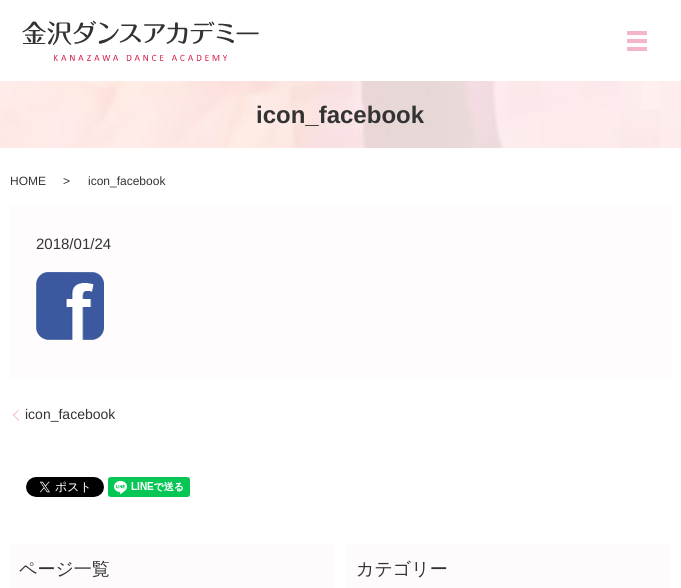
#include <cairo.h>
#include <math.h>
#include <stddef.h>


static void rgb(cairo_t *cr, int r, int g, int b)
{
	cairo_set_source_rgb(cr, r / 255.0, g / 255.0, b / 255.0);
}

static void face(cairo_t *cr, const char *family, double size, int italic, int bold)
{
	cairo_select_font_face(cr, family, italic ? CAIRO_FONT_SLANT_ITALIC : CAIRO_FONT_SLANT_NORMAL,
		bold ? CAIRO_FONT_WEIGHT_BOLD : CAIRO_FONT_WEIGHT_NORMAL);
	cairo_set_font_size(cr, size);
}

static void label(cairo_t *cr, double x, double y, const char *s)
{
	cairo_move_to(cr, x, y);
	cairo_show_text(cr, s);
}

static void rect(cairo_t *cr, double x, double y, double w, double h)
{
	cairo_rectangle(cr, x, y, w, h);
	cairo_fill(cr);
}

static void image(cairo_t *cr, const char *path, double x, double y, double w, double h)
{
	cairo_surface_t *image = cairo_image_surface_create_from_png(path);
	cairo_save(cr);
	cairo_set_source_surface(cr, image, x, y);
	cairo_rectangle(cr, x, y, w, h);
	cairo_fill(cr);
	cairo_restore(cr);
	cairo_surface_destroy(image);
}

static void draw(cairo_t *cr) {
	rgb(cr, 255, 255, 255);
	cairo_paint(cr);
	image(cr, "image0.png", 22, 20, 237, 41);
	rgb(cr, 244, 181, 202);
	rect(cr, 627, 31, 20, 4);
	rect(cr, 627, 39, 20, 4);
	rect(cr, 627, 47, 20, 4);
	image(cr, "image1.png", 0, 81, 681, 67);
	face(cr, "Liberation Sans", 24, 0, 1);
	rgb(cr, 51, 51, 51);
	label(cr, 256, 123, "icon_facebook");
	face(cr, "Liberation Sans", 12, 0, 0);
	label(cr, 10, 185, "HOME");
	label(cr, 63, 185, ">");
	label(cr, 88, 185, "icon_facebook");
	rgb(cr, 255, 252, 253);
	rect(cr, 10, 203, 661, 175);
	face(cr, "Liberation Sans", 15, 0, 0);
	rgb(cr, 51, 51, 51);
	label(cr, 36, 249, "2018/01/24");
	image(cr, "image2.png", 36, 272, 68, 68);
	rgb(cr, 244, 181, 202);
	cairo_new_path(cr);
	cairo_move_to(cr, 13, 415);
	cairo_line_to(cr, 18.5, 409.5);
	cairo_line_to(cr, 19, 410);
	cairo_line_to(cr, 13.5, 416);
	cairo_close_path(cr);
	cairo_fill(cr);
	face(cr, "Liberation Sans", 14, 0, 0);
	rgb(cr, 51, 51, 51);
	label(cr, 25, 419, "icon_facebook");
	rgb(cr, 244, 181, 202);
	cairo_new_path(cr);
	cairo_move_to(cr, 18.5, 421);
	cairo_line_to(cr, 13, 415);
	cairo_line_to(cr, 13.5, 414.5);
	cairo_line_to(cr, 19, 420);
	cairo_close_path(cr);
	cairo_fill(cr);
	image(cr, "image3.png", 26, 477, 78, 20);
	image(cr, "image4.png", 108, 477, 82, 20);
	rgb(cr, 254, 251, 252);
	rect(cr, 10, 544, 324, 44);
	face(cr, "WenQuanYi Zen Hei Medium", 18, 0, 0);
	rgb(cr, 51, 51, 51);
	label(cr, 19, 575, "ページ一覧");
	rgb(cr, 254, 251, 252);
	rect(cr, 347, 544, 324, 44);
	rgb(cr, 51, 51, 51);
	label(cr, 356, 575, "カテゴリー");
}

int main(void) {
	cairo_surface_t *surface = cairo_image_surface_create(CAIRO_FORMAT_RGB24, 681, 588);
	cairo_t *cr = cairo_create(surface);
	cairo_font_options_t *options = cairo_font_options_create();
	cairo_font_options_set_hint_metrics(options, CAIRO_HINT_METRICS_OFF);
	cairo_font_options_set_hint_style(options, CAIRO_HINT_STYLE_NONE);
	cairo_set_font_options(cr, options);
	cairo_set_miter_limit(cr, 4);
	draw(cr);
	cairo_surface_write_to_png(surface, "render.png");
	cairo_font_options_destroy(options);
	cairo_destroy(cr);
	cairo_surface_destroy(surface);
	return 0;
}
